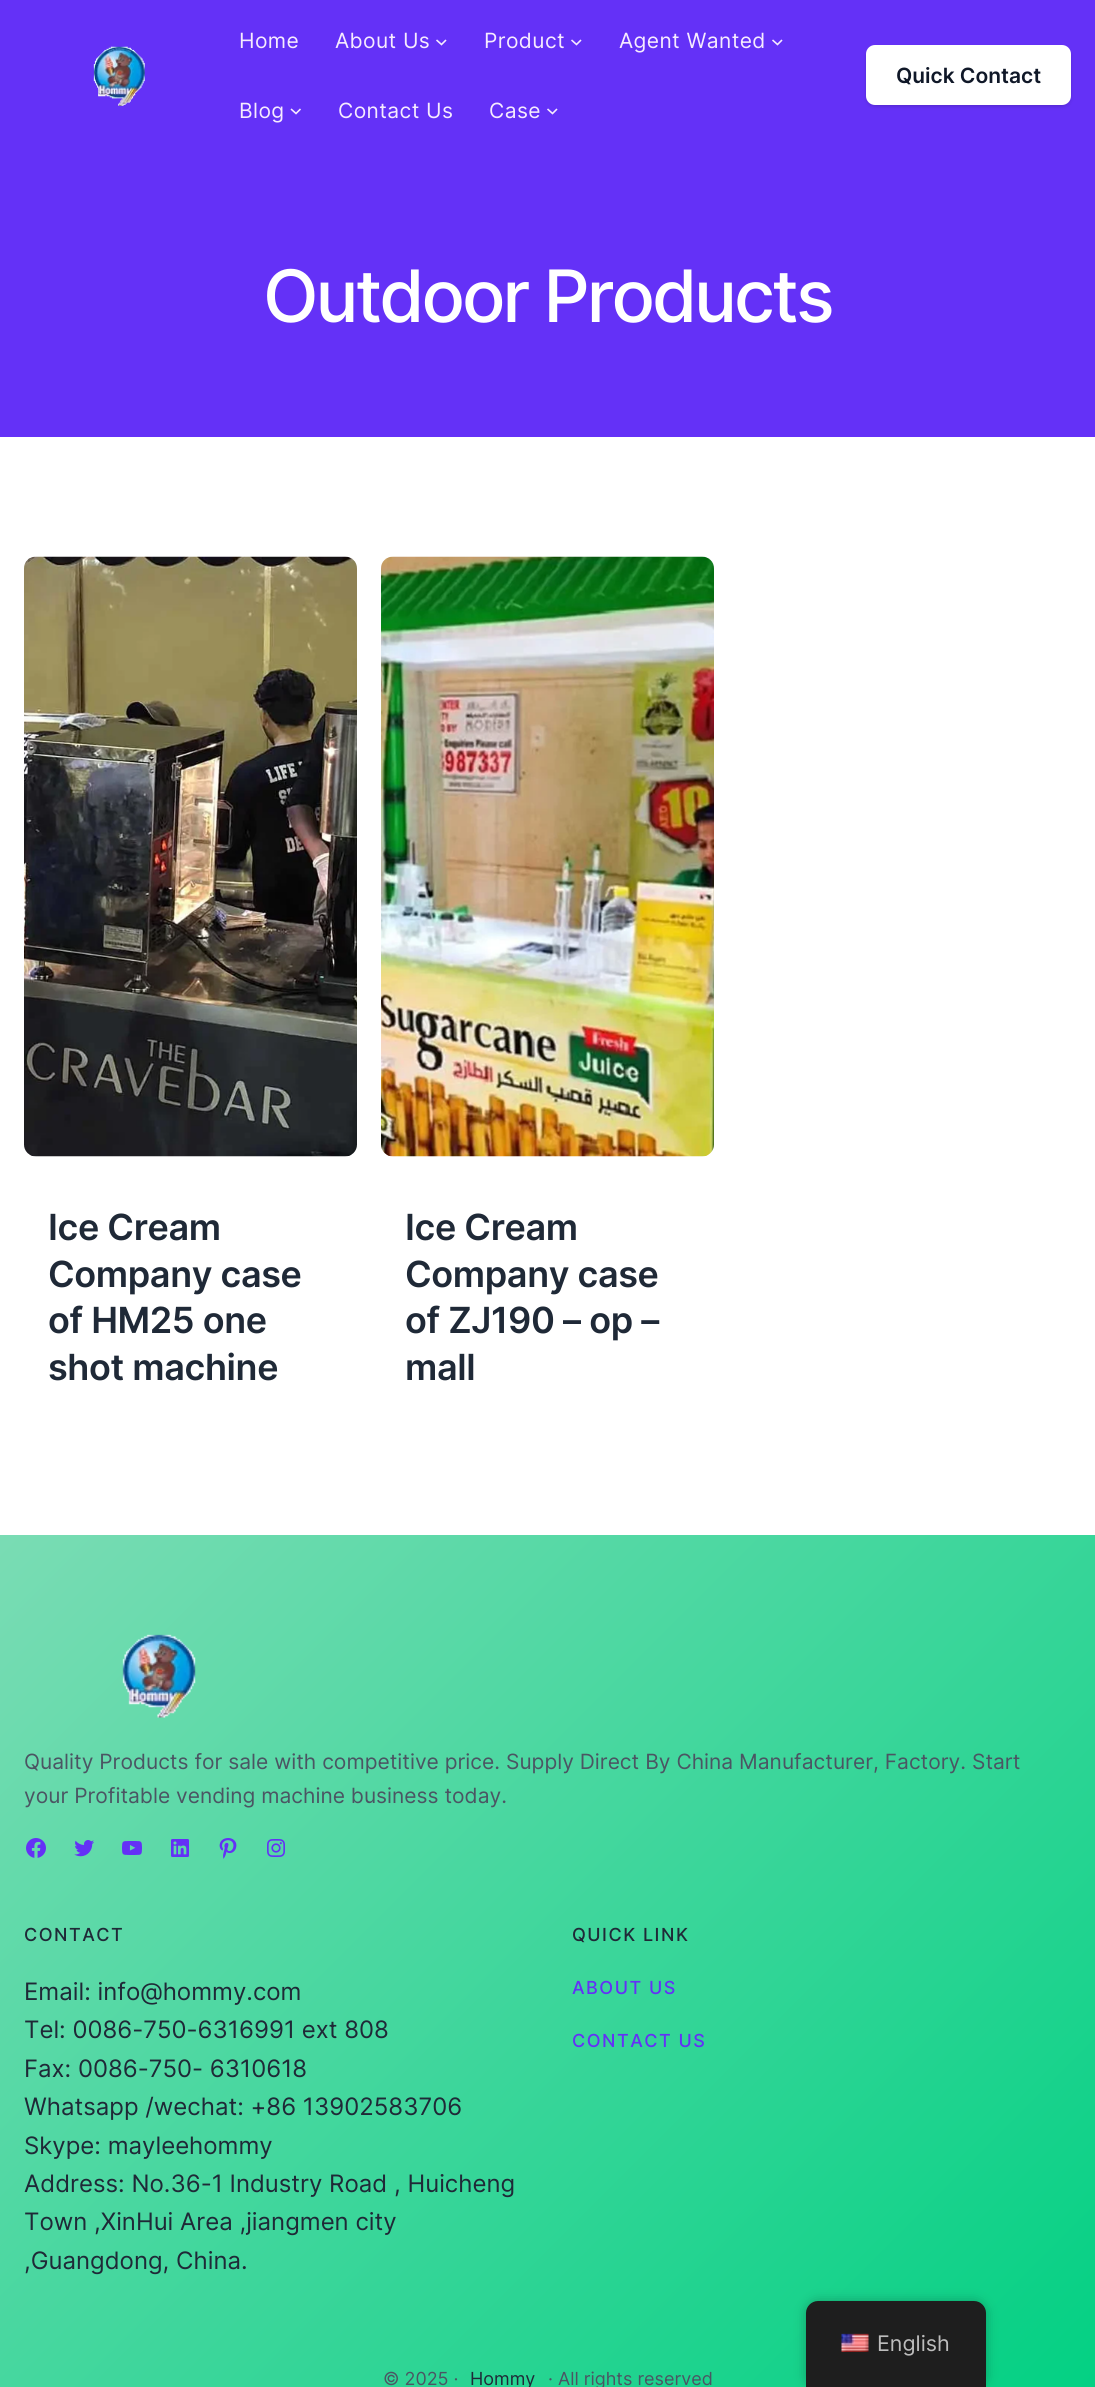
#include <cairo.h>
#include <math.h>
#include <stddef.h>


static void rgb(cairo_t *cr, int r, int g, int b)
{
	cairo_set_source_rgb(cr, r / 255.0, g / 255.0, b / 255.0);
}

static void face(cairo_t *cr, const char *family, double size, int italic, int bold)
{
	cairo_select_font_face(cr, family, italic ? CAIRO_FONT_SLANT_ITALIC : CAIRO_FONT_SLANT_NORMAL,
		bold ? CAIRO_FONT_WEIGHT_BOLD : CAIRO_FONT_WEIGHT_NORMAL);
	cairo_set_font_size(cr, size);
}

static void label(cairo_t *cr, double x, double y, const char *s)
{
	cairo_move_to(cr, x, y);
	cairo_show_text(cr, s);
}

static void tracked(cairo_t *cr, double x, double y, const char *s, double letter, double word)
{
	cairo_move_to(cr, x, y);
	while (*s) {
		char ch[5] = {0};
		int n = 0;
		do ch[n++] = *s++; while ((*s & 0xC0) == 0x80);
		cairo_show_text(cr, ch);
		cairo_rel_move_to(cr, letter + word * (*ch == ' '), 0);
	}
}

static void rect(cairo_t *cr, double x, double y, double w, double h)
{
	cairo_rectangle(cr, x, y, w, h);
	cairo_fill(cr);
}

static void rrect(cairo_t *cr, double x, double y, double w, double h, double r)
{
	cairo_new_sub_path(cr);
	cairo_arc(cr, x + w - r, y + h - r, r, 0, M_PI / 2);
	cairo_arc(cr, x + r, y + h - r, r, M_PI / 2, M_PI);
	cairo_arc(cr, x + r, y + r, r, M_PI, 1.5 * M_PI);
	cairo_arc(cr, x + w - r, y + r, r, 1.5 * M_PI, 2 * M_PI);
	cairo_close_path(cr);
}

static void soft_shadow(cairo_t *cr, double x, double y, double w, double h, double r, double blur, double alpha)
{
	cairo_push_group_with_content(cr, CAIRO_CONTENT_ALPHA);
	cairo_set_operator(cr, CAIRO_OPERATOR_SOURCE);
	for (int i = 15; i >= -15 && fmin(w, h) + blur * i / 3 > 0; i -= 2) {
		double e = blur * i / 6;
		cairo_set_source_rgba(cr, 0, 0, 0, alpha * erfc((i - 1) / 8.5) / 2);
		rrect(cr, x - e, y - e, w + 2 * e, h + 2 * e, fmax(0, fmin(r + e + blur * .6, fmin(w, h) / 2 + e)));
		cairo_fill(cr);
	}
	cairo_pattern_t *soft = cairo_pop_group(cr);
	cairo_mask(cr, soft);
	cairo_pattern_destroy(soft);
}

static void image(cairo_t *cr, const char *path, double x, double y, double w, double h)
{
	cairo_surface_t *image = cairo_image_surface_create_from_png(path);
	cairo_save(cr);
	cairo_set_source_surface(cr, image, x, y);
	cairo_rectangle(cr, x, y, w, h);
	cairo_fill(cr);
	cairo_restore(cr);
	cairo_surface_destroy(image);
}

static void draw(cairo_t *cr) {
	cairo_pattern_t *gradient;
	rgb(cr, 255, 255, 255);
	cairo_paint(cr);
	rgb(cr, 100, 49, 247);
	rect(cr, 0, 0, 1095, 437);
	image(cr, "image0.png", 93, 46, 52, 60);
	face(cr, "Inter", 21, 0, 0);
	rgb(cr, 246, 235, 254);
	tracked(cr, 239, 48, "Home", 0.4, 0);
	tracked(cr, 335, 48, "About Us", 0.4, 0);
	cairo_new_path(cr);
	cairo_move_to(cr, 436.5, 40);
	cairo_line_to(cr, 441.5, 44.5);
	cairo_line_to(cr, 446, 40);
	cairo_set_line_width(cr, 1.6);
	cairo_stroke(cr);
	tracked(cr, 484, 48, "Product", 0.4, 0);
	cairo_new_path(cr);
	cairo_move_to(cr, 571.5, 40);
	cairo_line_to(cr, 576.5, 44.5);
	cairo_line_to(cr, 581, 40);
	cairo_stroke(cr);
	tracked(cr, 619, 48, "Agent Wanted", 0.4, 0);
	cairo_new_path(cr);
	cairo_move_to(cr, 772.5, 40);
	cairo_line_to(cr, 777.5, 44.5);
	cairo_line_to(cr, 782, 40);
	cairo_stroke(cr);
	tracked(cr, 239, 118, "Blog", 0.4, 0);
	cairo_new_path(cr);
	cairo_move_to(cr, 291, 109);
	cairo_line_to(cr, 296, 113.5);
	cairo_line_to(cr, 300.5, 109);
	cairo_stroke(cr);
	tracked(cr, 338, 118, "Contact Us", 0.4, 0);
	tracked(cr, 489, 118, "Case", 0.4, 0);
	cairo_new_path(cr);
	cairo_move_to(cr, 547.5, 109);
	cairo_line_to(cr, 552.5, 113.5);
	cairo_line_to(cr, 557, 109);
	cairo_stroke(cr);
	rgb(cr, 0, 0, 0);
	soft_shadow(cr, 867, 48, 203, 57, 8, 1.5, 0.1);
	soft_shadow(cr, 866, 47, 205, 60, 9, 2, 0.1);
	rgb(cr, 255, 255, 255);
	rrect(cr, 866, 45, 205, 60, 9);
	cairo_fill(cr);
	face(cr, "Inter SemiBold", 21, 0, 0);
	rgb(cr, 16, 24, 40);
	label(cr, 896, 83, "Quick Contact");
	face(cr, "Inter Medium", 72.25, 0, 0);
	rgb(cr, 255, 255, 255);
	tracked(cr, 263, 322, "Outdoor Products", -3, 0);
	image(cr, "image1.png", 24, 556, 333, 601);
	face(cr, "Inter SemiBold", 36, 0, 0);
	rgb(cr, 31, 41, 55);
	tracked(cr, 48, 1240, "Ice Cream", -0.4, 0);
	tracked(cr, 48, 1287, "Company case", -0.4, 0);
	tracked(cr, 48, 1333, "of HM25 one", -0.4, 0);
	tracked(cr, 48, 1380, "shot machine", -0.4, 0);
	image(cr, "image2.png", 381, 556, 333, 601);
	tracked(cr, 405, 1240, "Ice Cream", -0.4, 0);
	tracked(cr, 405, 1287, "Company case", -0.4, 0);
	tracked(cr, 405, 1333, "of ZJ190 – op –", -0.4, 0);
	tracked(cr, 405, 1380, "mall", -0.4, 0);
	gradient = cairo_pattern_create_linear(47, 1487, 1048, 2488);
	cairo_pattern_add_color_stop_rgba(gradient, 0, 0.478, 0.863, 0.706, 1);
	cairo_pattern_add_color_stop_rgba(gradient, 1, 0, 0.816, 0.51, 1);
	cairo_set_source(cr, gradient);
	cairo_pattern_destroy(gradient);
	rect(cr, 0, 1535, 1095, 852);
	image(cr, "image3.png", 122, 1634, 74, 84);
	face(cr, "Inter", 21, 0, 0);
	rgb(cr, 75, 85, 99);
	label(cr, 24, 1769, "Quality Products for sale with competitive price. Supply Direct By China Manufacturer, Factory. Start");
	label(cr, 24, 1803, "your Profitable vending machine business today.");
	image(cr, "image4.png", 26, 1838, 20, 20);
	image(cr, "image5.png", 74, 1840, 20, 17);
	image(cr, "image6.png", 122, 1841, 20, 14);
	image(cr, "image7.png", 171, 1839, 18, 18);
	image(cr, "image8.png", 219, 1838, 18, 21);
	image(cr, "image9.png", 267, 1839, 18, 18);
	face(cr, "Inter Medium", 18, 0, 0);
	rgb(cr, 31, 41, 55);
	tracked(cr, 24, 1941, "CONTACT", 1.5, 0);
	face(cr, "Inter", 24, 0, 0);
	label(cr, 24, 2000, "Email: info@hommy.com");
	label(cr, 24, 2038, "Tel: 0086-750-6316991 ext 808");
	label(cr, 24, 2077, "Fax: 0086-750- 6310618");
	label(cr, 24, 2115, "Whatsapp /wechat: +86 13902583706");
	label(cr, 24, 2154, "Skype: mayleehommy");
	label(cr, 24, 2192, "Address: No.36-1 Industry Road , Huicheng");
	label(cr, 24, 2230, "Town ,XinHui Area ,jiangmen city");
	label(cr, 24, 2269, ",Guangdong, China.");
	face(cr, "Inter Medium", 18, 0, 0);
	tracked(cr, 572, 1941, "QUICK LINK", 1.5, 0);
	rgb(cr, 100, 49, 246);
	tracked(cr, 572, 1994, "ABOUT US", 1.5, 0);
	tracked(cr, 572, 2047, "CONTACT US", 1.5, 0);
	face(cr, "Inter", 18, 0, 0);
	rgb(cr, 75, 85, 99);
	label(cr, 383, 2385, "© 2025 ·");
	rgb(cr, 31, 41, 55);
	label(cr, 470, 2385, "Hommy");
	rgb(cr, 75, 85, 99);
	label(cr, 548, 2385, "· All rights reserved");
	rgb(cr, 0, 0, 0);
	soft_shadow(cr, 806, 2301, 180, 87, 12, 6, 0.25);
	rgb(cr, 30, 30, 30);
	cairo_new_path(cr);
	cairo_move_to(cr, 818, 2301);
	cairo_line_to(cr, 974, 2301);
	cairo_curve_to(cr, 980.5, 2301, 986, 2306.5, 986, 2313);
	cairo_line_to(cr, 986, 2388);
	cairo_line_to(cr, 806, 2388);
	cairo_line_to(cr, 806, 2313);
	cairo_curve_to(cr, 806, 2306.5, 811.5, 2301, 818, 2301);
	cairo_close_path(cr);
	cairo_fill(cr);
	image(cr, "image10.png", 841, 2333, 28, 19);
	face(cr, "Inter", 21.5, 0, 0);
	rgb(cr, 189, 189, 189);
	label(cr, 877, 2351, "English");
}

int main(void) {
	cairo_surface_t *surface = cairo_image_surface_create(CAIRO_FORMAT_RGB24, 1095, 2387);
	cairo_t *cr = cairo_create(surface);
	cairo_font_options_t *options = cairo_font_options_create();
	cairo_font_options_set_hint_metrics(options, CAIRO_HINT_METRICS_OFF);
	cairo_font_options_set_hint_style(options, CAIRO_HINT_STYLE_NONE);
	cairo_set_font_options(cr, options);
	cairo_set_miter_limit(cr, 4);
	draw(cr);
	cairo_surface_write_to_png(surface, "render.png");
	cairo_font_options_destroy(options);
	cairo_destroy(cr);
	cairo_surface_destroy(surface);
	return 0;
}
